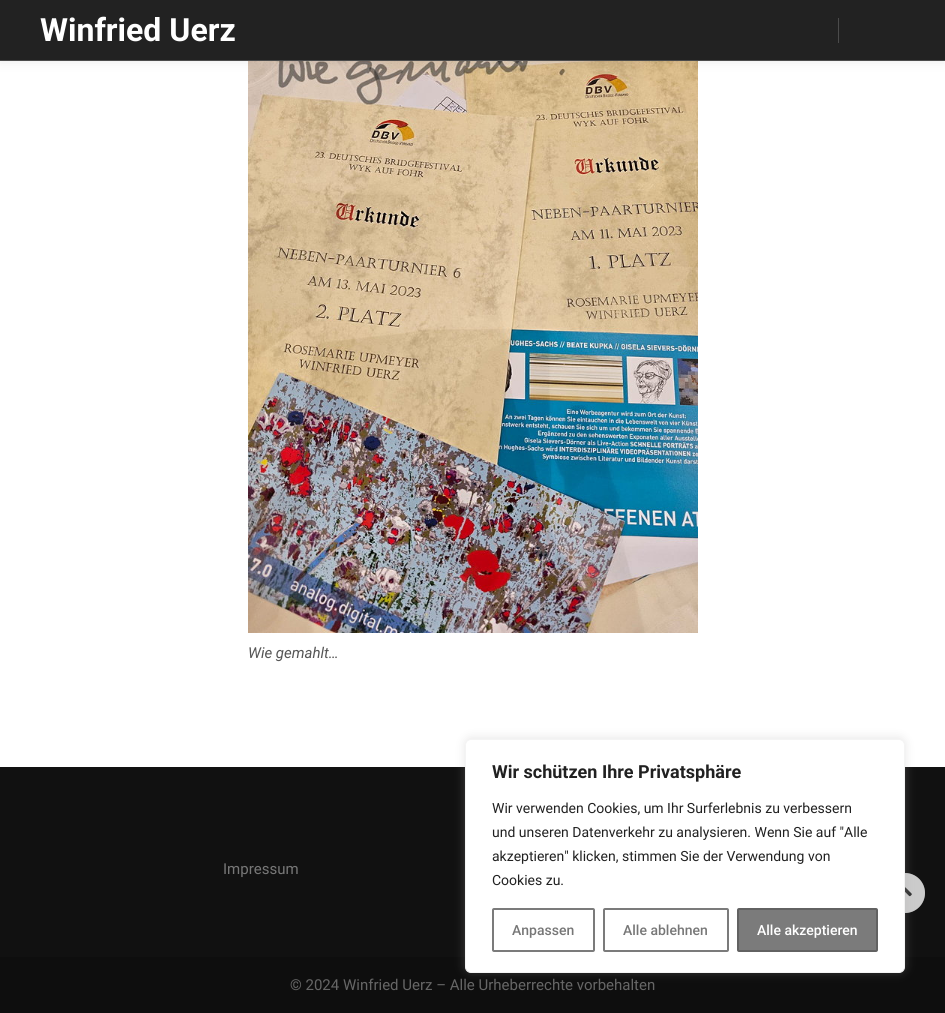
#include <cairo.h>
#include <math.h>
#include <stddef.h>


static void rgb(cairo_t *cr, int r, int g, int b)
{
	cairo_set_source_rgb(cr, r / 255.0, g / 255.0, b / 255.0);
}

static void face(cairo_t *cr, const char *family, double size, int italic, int bold)
{
	cairo_select_font_face(cr, family, italic ? CAIRO_FONT_SLANT_ITALIC : CAIRO_FONT_SLANT_NORMAL,
		bold ? CAIRO_FONT_WEIGHT_BOLD : CAIRO_FONT_WEIGHT_NORMAL);
	cairo_set_font_size(cr, size);
}

static void label(cairo_t *cr, double x, double y, const char *s)
{
	cairo_move_to(cr, x, y);
	cairo_show_text(cr, s);
}

static void rect(cairo_t *cr, double x, double y, double w, double h)
{
	cairo_rectangle(cr, x, y, w, h);
	cairo_fill(cr);
}

static void rrect(cairo_t *cr, double x, double y, double w, double h, double r)
{
	cairo_new_sub_path(cr);
	cairo_arc(cr, x + w - r, y + h - r, r, 0, M_PI / 2);
	cairo_arc(cr, x + r, y + h - r, r, M_PI / 2, M_PI);
	cairo_arc(cr, x + r, y + r, r, M_PI, 1.5 * M_PI);
	cairo_arc(cr, x + w - r, y + r, r, 1.5 * M_PI, 2 * M_PI);
	cairo_close_path(cr);
}

static void soft_shadow(cairo_t *cr, double x, double y, double w, double h, double r, double blur, double alpha)
{
	cairo_push_group_with_content(cr, CAIRO_CONTENT_ALPHA);
	cairo_set_operator(cr, CAIRO_OPERATOR_SOURCE);
	for (int i = 15; i >= -15 && fmin(w, h) + blur * i / 3 > 0; i -= 2) {
		double e = blur * i / 6;
		cairo_set_source_rgba(cr, 0, 0, 0, alpha * erfc((i - 1) / 8.5) / 2);
		rrect(cr, x - e, y - e, w + 2 * e, h + 2 * e, fmax(0, fmin(r + e + blur * .6, fmin(w, h) / 2 + e)));
		cairo_fill(cr);
	}
	cairo_pattern_t *soft = cairo_pop_group(cr);
	cairo_mask(cr, soft);
	cairo_pattern_destroy(soft);
}

static void image(cairo_t *cr, const char *path, double x, double y, double w, double h)
{
	cairo_surface_t *image = cairo_image_surface_create_from_png(path);
	cairo_save(cr);
	cairo_set_source_surface(cr, image, x, y);
	cairo_rectangle(cr, x, y, w, h);
	cairo_fill(cr);
	cairo_restore(cr);
	cairo_surface_destroy(image);
}

static void draw(cairo_t *cr) {
	rgb(cr, 255, 255, 255);
	cairo_paint(cr);
	image(cr, "image0.png", 248, 61, 450, 572);
	rgb(cr, 0, 0, 0);
	soft_shadow(cr, 0, 0, 945, 61, 0, 6, 0.09);
	rgb(cr, 34, 34, 34);
	rect(cr, 0, 0, 945, 60);
	rgb(cr, 75, 75, 75);
	rect(cr, 0, 60, 945, 1);
	face(cr, "Roboto", 32, 0, 1);
	rgb(cr, 255, 255, 255);
	label(cr, 40, 41, "Winfried Uerz");
	rgb(cr, 75, 75, 75);
	rect(cr, 838, 18, 1, 25);
	face(cr, "Roboto", 15, 1, 0);
	rgb(cr, 85, 85, 85);
	label(cr, 248, 658, "Wie gemahlt…");
	rgb(cr, 17, 17, 17);
	rect(cr, 0, 767, 945, 190);
	face(cr, "Roboto", 15, 0, 0);
	rgb(cr, 119, 119, 119);
	label(cr, 223, 874, "Impressum");
	rgb(cr, 14, 14, 14);
	rect(cr, 0, 957, 945, 56);
	rgb(cr, 102, 102, 102);
	label(cr, 290, 990, "© 2024 Winfried Uerz – Alle Urheberrechte vorbehalten");
	rgb(cr, 204, 204, 204);
	cairo_new_path(cr);
	cairo_arc(cr, 905, 893, 20, 0, 2 * M_PI);
	cairo_fill(cr);
	cairo_set_source_rgba(cr, 0.8, 0.8, 0.8, 0.4);
	cairo_arc(cr, 905, 893, 20, 0, 2 * M_PI);
	cairo_fill(cr);
	image(cr, "image1.png", 905, 887, 7, 10);
	rgb(cr, 172, 171, 171);
	soft_shadow(cr, 465, 738, 440, 234, 6, 5, 0.3);
	rgb(cr, 255, 255, 255);
	rrect(cr, 465.5, 739.5, 439, 233, 5.5);
	cairo_fill_preserve(cr);
	rgb(cr, 244, 244, 244);
	cairo_set_line_width(cr, 1);
	cairo_stroke(cr);
	face(cr, "Roboto", 18, 0, 1);
	rgb(cr, 33, 33, 33);
	label(cr, 492, 778, "Wir schützen Ihre Privatsphäre");
	face(cr, "Roboto", 14, 0, 0);
	label(cr, 492, 813, "Wir verwenden Cookies, um Ihr Surferlebnis zu verbessern");
	label(cr, 492, 837, "und unseren Datenverkehr zu analysieren. Wenn Sie auf \"Alle");
	label(cr, 492, 861, "akzeptieren\" klicken, stimmen Sie der Verwendung von");
	label(cr, 492, 885, "Cookies zu.");
	rrect(cr, 493, 909, 101, 42, 1);
	rgb(cr, 123, 123, 123);
	cairo_set_line_width(cr, 2);
	cairo_stroke(cr);
	face(cr, "Roboto Medium", 14, 0, 0);
	rgb(cr, 119, 119, 119);
	label(cr, 512, 935, "Anpassen");
	rrect(cr, 604, 909, 124, 42, 1);
	rgb(cr, 123, 123, 123);
	cairo_stroke(cr);
	rgb(cr, 119, 119, 119);
	label(cr, 623, 935, "Alle ablehnen");
	rgb(cr, 123, 123, 123);
	rrect(cr, 738, 909, 139, 42, 1);
	cairo_fill_preserve(cr);
	rgb(cr, 98, 98, 98);
	cairo_stroke(cr);
	rgb(cr, 255, 255, 255);
	label(cr, 757, 935, "Alle akzeptieren");
}

int main(void) {
	cairo_surface_t *surface = cairo_image_surface_create(CAIRO_FORMAT_RGB24, 945, 1013);
	cairo_t *cr = cairo_create(surface);
	cairo_font_options_t *options = cairo_font_options_create();
	cairo_font_options_set_hint_metrics(options, CAIRO_HINT_METRICS_OFF);
	cairo_font_options_set_hint_style(options, CAIRO_HINT_STYLE_NONE);
	cairo_set_font_options(cr, options);
	cairo_set_miter_limit(cr, 4);
	draw(cr);
	cairo_surface_write_to_png(surface, "render.png");
	cairo_font_options_destroy(options);
	cairo_destroy(cr);
	cairo_surface_destroy(surface);
	return 0;
}
